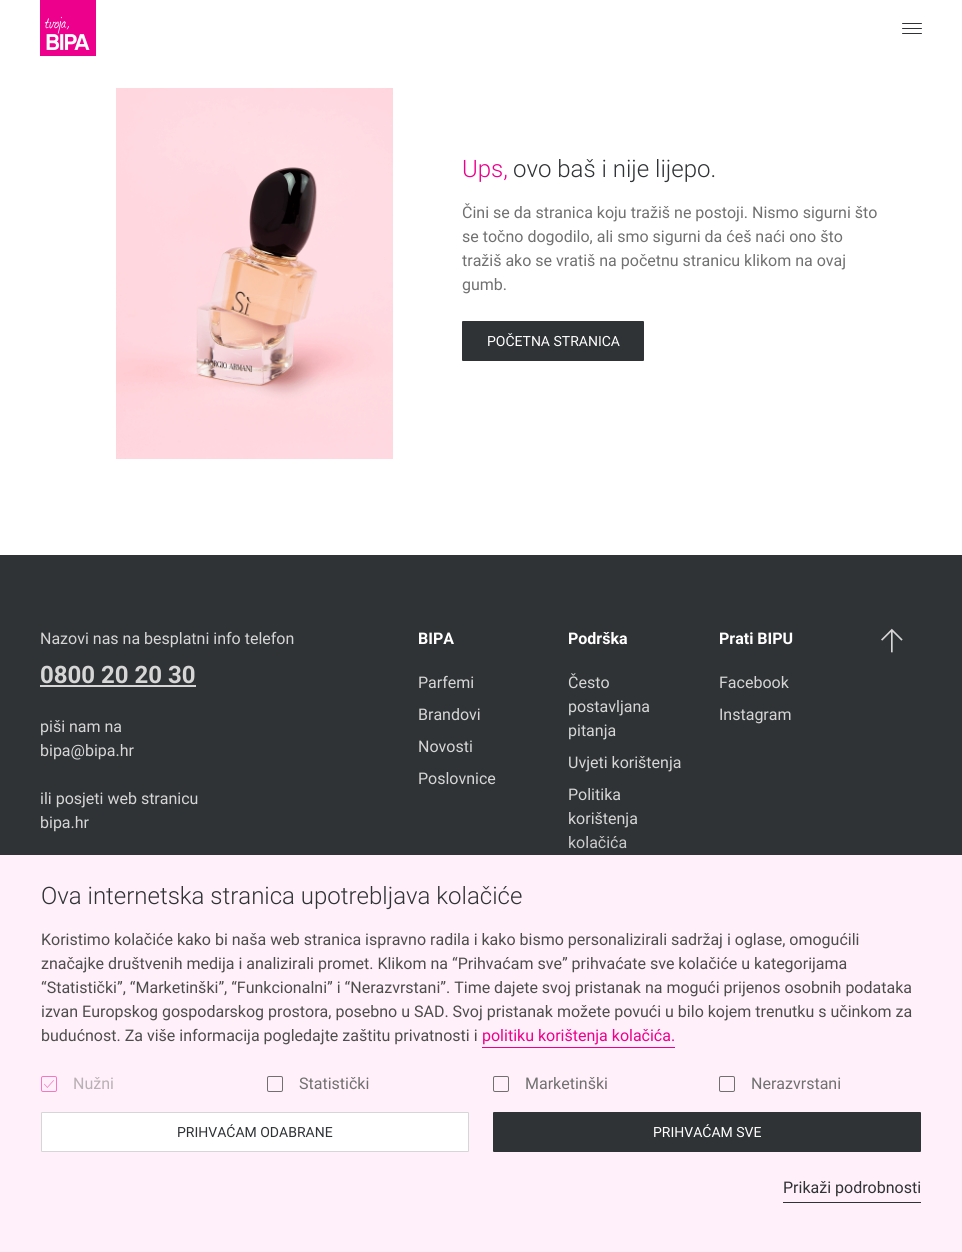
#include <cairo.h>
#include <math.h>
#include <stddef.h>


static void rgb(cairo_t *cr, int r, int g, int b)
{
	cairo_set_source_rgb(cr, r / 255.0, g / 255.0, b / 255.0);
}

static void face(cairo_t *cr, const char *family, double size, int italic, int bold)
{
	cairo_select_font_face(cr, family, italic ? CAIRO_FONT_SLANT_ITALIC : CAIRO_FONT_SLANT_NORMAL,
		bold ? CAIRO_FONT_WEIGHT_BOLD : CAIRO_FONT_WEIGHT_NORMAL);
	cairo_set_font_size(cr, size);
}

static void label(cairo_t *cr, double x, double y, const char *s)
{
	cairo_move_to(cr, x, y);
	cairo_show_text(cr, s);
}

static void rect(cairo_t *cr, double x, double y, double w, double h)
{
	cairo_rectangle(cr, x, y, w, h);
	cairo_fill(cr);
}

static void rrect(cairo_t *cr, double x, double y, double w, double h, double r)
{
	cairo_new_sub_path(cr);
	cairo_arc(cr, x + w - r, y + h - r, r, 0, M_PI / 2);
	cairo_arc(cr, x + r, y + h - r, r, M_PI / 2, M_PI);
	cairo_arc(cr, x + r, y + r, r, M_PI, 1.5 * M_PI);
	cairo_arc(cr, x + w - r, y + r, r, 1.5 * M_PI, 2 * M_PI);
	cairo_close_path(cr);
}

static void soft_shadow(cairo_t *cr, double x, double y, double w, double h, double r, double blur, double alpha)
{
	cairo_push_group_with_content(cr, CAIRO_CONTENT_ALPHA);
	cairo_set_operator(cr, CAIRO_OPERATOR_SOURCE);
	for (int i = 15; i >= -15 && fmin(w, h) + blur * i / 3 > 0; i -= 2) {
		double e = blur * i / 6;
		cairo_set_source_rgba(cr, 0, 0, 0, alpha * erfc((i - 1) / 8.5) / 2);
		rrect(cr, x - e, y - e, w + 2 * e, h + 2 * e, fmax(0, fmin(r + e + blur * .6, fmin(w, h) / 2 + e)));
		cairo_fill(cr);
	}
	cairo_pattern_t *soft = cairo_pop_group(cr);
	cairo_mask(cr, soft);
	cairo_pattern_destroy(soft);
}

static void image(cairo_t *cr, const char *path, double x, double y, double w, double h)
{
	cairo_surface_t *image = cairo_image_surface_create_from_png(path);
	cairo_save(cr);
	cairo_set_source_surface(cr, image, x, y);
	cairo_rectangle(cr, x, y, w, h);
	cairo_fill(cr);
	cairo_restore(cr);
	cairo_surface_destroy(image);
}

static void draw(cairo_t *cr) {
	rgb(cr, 255, 255, 255);
	cairo_paint(cr);
	image(cr, "image0.png", 40, 0, 56, 56);
	rgb(cr, 47, 51, 53);
	rrect(cr, 902, 28, 20, 1, 0.5);
	cairo_fill(cr);
	rrect(cr, 902, 23, 20, 1, 0.5);
	cairo_fill(cr);
	rrect(cr, 902, 33, 20, 1, 0.5);
	cairo_fill(cr);
	image(cr, "image1.png", 116, 88, 277, 371);
	face(cr, "Roboto Light", 24, 0, 0);
	rgb(cr, 236, 0, 140);
	label(cr, 462, 177, "Ups,");
	rgb(cr, 47, 51, 53);
	label(cr, 513, 177, "ovo baš i nije lijepo.");
	face(cr, "Roboto", 16, 0, 0);
	rgb(cr, 112, 112, 112);
	label(cr, 462, 218, "Čini se da stranica koju tražiš ne postoji. Nismo sigurni što");
	label(cr, 462, 242, "se točno dogodilo, ali smo sigurni da ćeš naći ono što");
	label(cr, 462, 266, "tražiš ako se vratiš na početnu stranicu klikom na ovaj");
	label(cr, 462, 290, "gumb.");
	rgb(cr, 47, 51, 53);
	rrect(cr, 462.5, 321.5, 181, 39, 0.5);
	cairo_fill_preserve(cr);
	cairo_set_line_width(cr, 1);
	cairo_stroke(cr);
	face(cr, "Roboto", 14, 0, 0);
	rgb(cr, 255, 255, 255);
	label(cr, 487, 346, "POČETNA STRANICA");
	rgb(cr, 47, 51, 53);
	rect(cr, 0, 555, 962, 300);
	face(cr, "Roboto", 16, 0, 0);
	rgb(cr, 214, 214, 214);
	label(cr, 40, 644, "Nazovi nas na besplatni info telefon");
	face(cr, "Roboto", 24, 0, 1);
	label(cr, 40, 683, "0800 20 20 30");
	rect(cr, 40, 685, 156, 2);
	face(cr, "Roboto", 16, 0, 0);
	label(cr, 40, 732, "piši nam na");
	label(cr, 40, 756, "bipa@bipa.hr");
	label(cr, 40, 804, "ili posjeti web stranicu");
	label(cr, 40, 828, "bipa.hr");
	face(cr, "Roboto", 16, 0, 1);
	rgb(cr, 255, 255, 255);
	label(cr, 418, 644, "BIPA");
	face(cr, "Roboto", 16, 0, 0);
	rgb(cr, 214, 214, 214);
	label(cr, 418, 688, "Parfemi");
	label(cr, 418, 720, "Brandovi");
	label(cr, 418, 752, "Novosti");
	label(cr, 418, 784, "Poslovnice");
	face(cr, "Roboto", 16, 0, 1);
	rgb(cr, 255, 255, 255);
	label(cr, 568, 644, "Podrška");
	face(cr, "Roboto", 16, 0, 0);
	rgb(cr, 214, 214, 214);
	label(cr, 568, 688, "Često");
	label(cr, 568, 712, "postavljana");
	label(cr, 568, 736, "pitanja");
	label(cr, 568, 768, "Uvjeti korištenja");
	label(cr, 568, 800, "Politika");
	label(cr, 568, 824, "korištenja");
	label(cr, 568, 848, "kolačića");
	face(cr, "Roboto", 16, 0, 1);
	rgb(cr, 255, 255, 255);
	label(cr, 719, 644, "Prati BIPU");
	face(cr, "Roboto", 16, 0, 0);
	rgb(cr, 214, 214, 214);
	label(cr, 719, 688, "Facebook");
	label(cr, 719, 720, "Instagram");
	image(cr, "image2.png", 881, 628, 22, 25);
	rgb(cr, 47, 51, 53);
	soft_shadow(cr, 0, 851, 962, 397, 0, 12.5, 0.25);
	rgb(cr, 255, 240, 249);
	rect(cr, 0, 855, 962, 397);
	face(cr, "Roboto Light", 24, 0, 0);
	rgb(cr, 47, 51, 53);
	label(cr, 41, 904, "Ova internetska stranica upotrebljava kolačiće");
	face(cr, "Roboto", 16, 0, 0);
	rgb(cr, 77, 77, 77);
	label(cr, 41, 945, "Koristimo kolačiće kako bi naša web stranica ispravno radila i kako bismo personalizirali sadržaj i oglase, omogućili");
	label(cr, 41, 969, "značajke društvenih medija i analizirali promet. Klikom na “Prihvaćam sve” prihvaćate sve kolačiće u kategorijama");
	label(cr, 41, 993, "“Statistički”, “Marketinški”, “Funkcionalni” i “Nerazvrstani”. Time dajete svoj pristanak na mogući prijenos osobnih podataka");
	label(cr, 41, 1017, "izvan Europskog gospodarskog prostora, posebno u SAD. Svoj pristanak možete povući u bilo kojem trenutku s učinkom za");
	label(cr, 41, 1041, "budućnost. Za više informacija pogledajte zaštitu privatnosti i");
	rgb(cr, 236, 0, 140);
	label(cr, 482, 1041, "politiku korištenja kolačića.");
	rect(cr, 482, 1047, 193, 1);
	rrect(cr, 41.5, 1076.5, 15, 15, 1.5);
	rgb(cr, 246, 120, 195);
	cairo_stroke(cr);
	image(cr, "image3.png", 44, 1080, 10, 8);
	rgb(cr, 184, 176, 181);
	label(cr, 73, 1089, "Nužni");
	rrect(cr, 267.5, 1076.5, 15, 15, 1.5);
	rgb(cr, 112, 112, 112);
	cairo_stroke(cr);
	label(cr, 299, 1089, "Statistički");
	rrect(cr, 493.5, 1076.5, 15, 15, 1.5);
	cairo_stroke(cr);
	label(cr, 525, 1089, "Marketinški");
	rrect(cr, 719.5, 1076.5, 15, 15, 1.5);
	cairo_stroke(cr);
	label(cr, 751, 1089, "Nerazvrstani");
	rgb(cr, 255, 255, 255);
	rrect(cr, 41.5, 1112.5, 427, 39, 0.5);
	cairo_fill_preserve(cr);
	rgb(cr, 214, 214, 214);
	cairo_stroke(cr);
	face(cr, "Roboto", 14, 0, 0);
	rgb(cr, 47, 51, 53);
	label(cr, 177, 1137, "PRIHVAĆAM ODABRANE");
	rrect(cr, 493.5, 1112.5, 427, 39, 0.5);
	cairo_fill_preserve(cr);
	cairo_stroke(cr);
	rgb(cr, 255, 255, 255);
	label(cr, 653, 1137, "PRIHVAĆAM SVE");
	rgb(cr, 47, 51, 53);
	rect(cr, 783, 1202, 138, 1);
	face(cr, "Roboto", 16, 0, 0);
	label(cr, 783, 1193, "Prikaži podrobnosti");
}

int main(void) {
	cairo_surface_t *surface = cairo_image_surface_create(CAIRO_FORMAT_RGB24, 962, 1252);
	cairo_t *cr = cairo_create(surface);
	cairo_font_options_t *options = cairo_font_options_create();
	cairo_font_options_set_hint_metrics(options, CAIRO_HINT_METRICS_OFF);
	cairo_font_options_set_hint_style(options, CAIRO_HINT_STYLE_NONE);
	cairo_set_font_options(cr, options);
	cairo_set_miter_limit(cr, 4);
	draw(cr);
	cairo_surface_write_to_png(surface, "render.png");
	cairo_font_options_destroy(options);
	cairo_destroy(cr);
	cairo_surface_destroy(surface);
	return 0;
}
